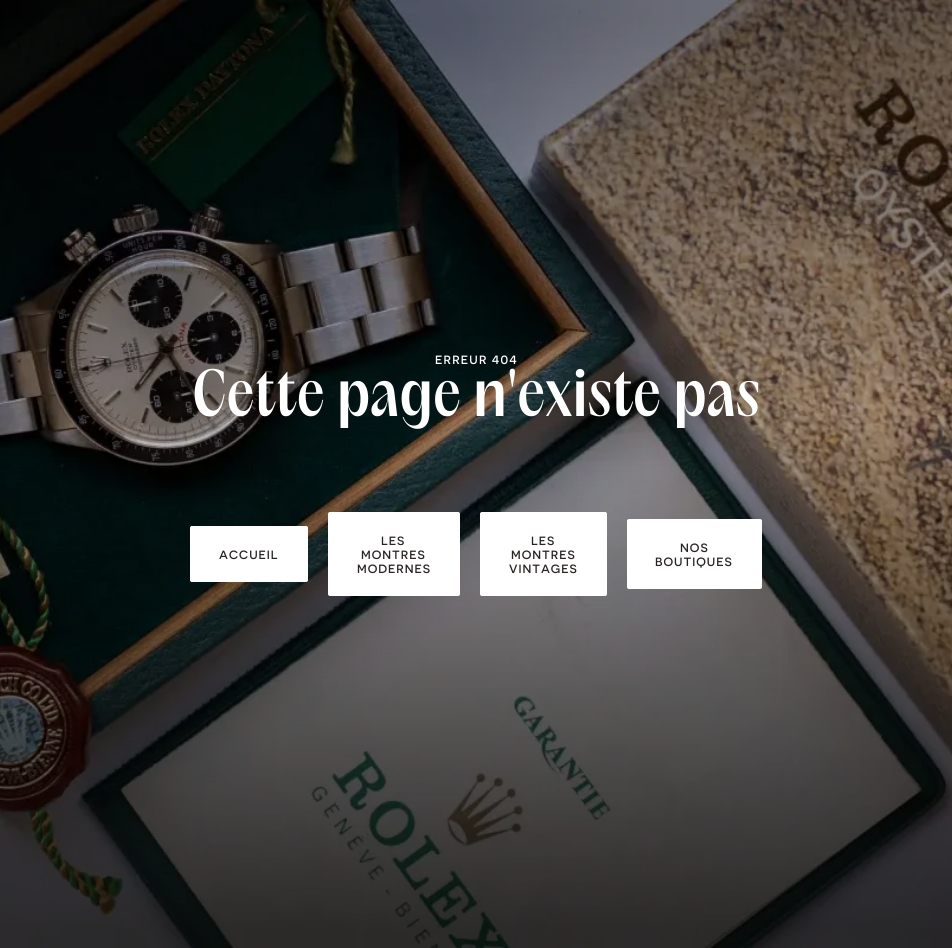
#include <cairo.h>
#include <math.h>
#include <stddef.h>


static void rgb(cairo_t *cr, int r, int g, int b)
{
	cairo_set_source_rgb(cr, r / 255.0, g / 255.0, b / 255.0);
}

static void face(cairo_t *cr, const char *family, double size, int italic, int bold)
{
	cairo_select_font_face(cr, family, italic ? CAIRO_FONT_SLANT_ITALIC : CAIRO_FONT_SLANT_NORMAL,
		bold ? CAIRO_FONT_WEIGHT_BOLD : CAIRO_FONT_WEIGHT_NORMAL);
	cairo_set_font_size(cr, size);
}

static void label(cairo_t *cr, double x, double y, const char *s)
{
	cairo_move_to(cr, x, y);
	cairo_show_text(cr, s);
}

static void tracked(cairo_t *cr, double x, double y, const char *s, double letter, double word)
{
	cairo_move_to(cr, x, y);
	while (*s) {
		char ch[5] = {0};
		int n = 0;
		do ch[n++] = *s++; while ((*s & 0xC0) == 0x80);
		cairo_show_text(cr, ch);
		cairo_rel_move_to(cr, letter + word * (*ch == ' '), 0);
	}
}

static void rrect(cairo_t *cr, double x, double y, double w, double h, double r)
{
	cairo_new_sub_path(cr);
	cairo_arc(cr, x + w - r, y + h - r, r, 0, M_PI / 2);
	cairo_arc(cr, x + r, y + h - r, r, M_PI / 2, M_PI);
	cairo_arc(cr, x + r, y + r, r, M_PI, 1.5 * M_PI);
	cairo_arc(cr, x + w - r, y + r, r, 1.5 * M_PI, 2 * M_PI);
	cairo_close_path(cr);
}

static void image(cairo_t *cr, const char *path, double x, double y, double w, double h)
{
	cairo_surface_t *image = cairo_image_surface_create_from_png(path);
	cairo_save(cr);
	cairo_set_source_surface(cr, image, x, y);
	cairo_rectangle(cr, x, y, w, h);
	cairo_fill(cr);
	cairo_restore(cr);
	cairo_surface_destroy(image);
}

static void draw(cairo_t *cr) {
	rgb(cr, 255, 255, 255);
	cairo_paint(cr);
	image(cr, "image0.png", 0, 0, 952, 948);
	face(cr, "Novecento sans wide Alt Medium", 12, 0, 0);
	rgb(cr, 255, 255, 255);
	tracked(cr, 435, 364, "ERREUR 404", 1.25, 0);
	face(cr, "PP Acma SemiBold", 60, 0, 0);
	label(cr, 192, 416, "Cette page n'existe pas");
	rrect(cr, 190.5, 526.5, 117, 55, 1.5);
	cairo_fill_preserve(cr);
	cairo_set_line_width(cr, 1);
	cairo_stroke(cr);
	face(cr, "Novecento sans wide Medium", 12, 0, 0);
	rgb(cr, 41, 35, 33);
	tracked(cr, 219, 559, "ACCUEIL", 1, 0);
	rgb(cr, 255, 255, 255);
	rrect(cr, 328.5, 512.5, 131, 83, 1.5);
	cairo_fill_preserve(cr);
	cairo_stroke(cr);
	rgb(cr, 41, 35, 33);
	tracked(cr, 381, 545, "LES", 1, 0);
	tracked(cr, 361, 559, "MONTRES", 1, 0);
	tracked(cr, 357, 573, "MODERNES", 1, 0);
	rgb(cr, 255, 255, 255);
	rrect(cr, 480.5, 512.5, 126, 83, 1.5);
	cairo_fill_preserve(cr);
	cairo_stroke(cr);
	rgb(cr, 41, 35, 33);
	tracked(cr, 531, 545, "LES", 1, 0);
	tracked(cr, 511, 559, "MONTRES", 1, 0);
	tracked(cr, 509, 573, "VINTAGES", 1, 0);
	rgb(cr, 255, 255, 255);
	rrect(cr, 627.5, 519.5, 134, 69, 1.5);
	cairo_fill_preserve(cr);
	cairo_stroke(cr);
	rgb(cr, 41, 35, 33);
	tracked(cr, 680, 552, "NOS", 1, 0);
	tracked(cr, 655, 566, "BOUTIQUES", 1, 0);
}

int main(void) {
	cairo_surface_t *surface = cairo_image_surface_create(CAIRO_FORMAT_RGB24, 952, 948);
	cairo_t *cr = cairo_create(surface);
	cairo_font_options_t *options = cairo_font_options_create();
	cairo_font_options_set_hint_metrics(options, CAIRO_HINT_METRICS_OFF);
	cairo_font_options_set_hint_style(options, CAIRO_HINT_STYLE_NONE);
	cairo_set_font_options(cr, options);
	cairo_set_miter_limit(cr, 4);
	draw(cr);
	cairo_surface_write_to_png(surface, "render.png");
	cairo_font_options_destroy(options);
	cairo_destroy(cr);
	cairo_surface_destroy(surface);
	return 0;
}
